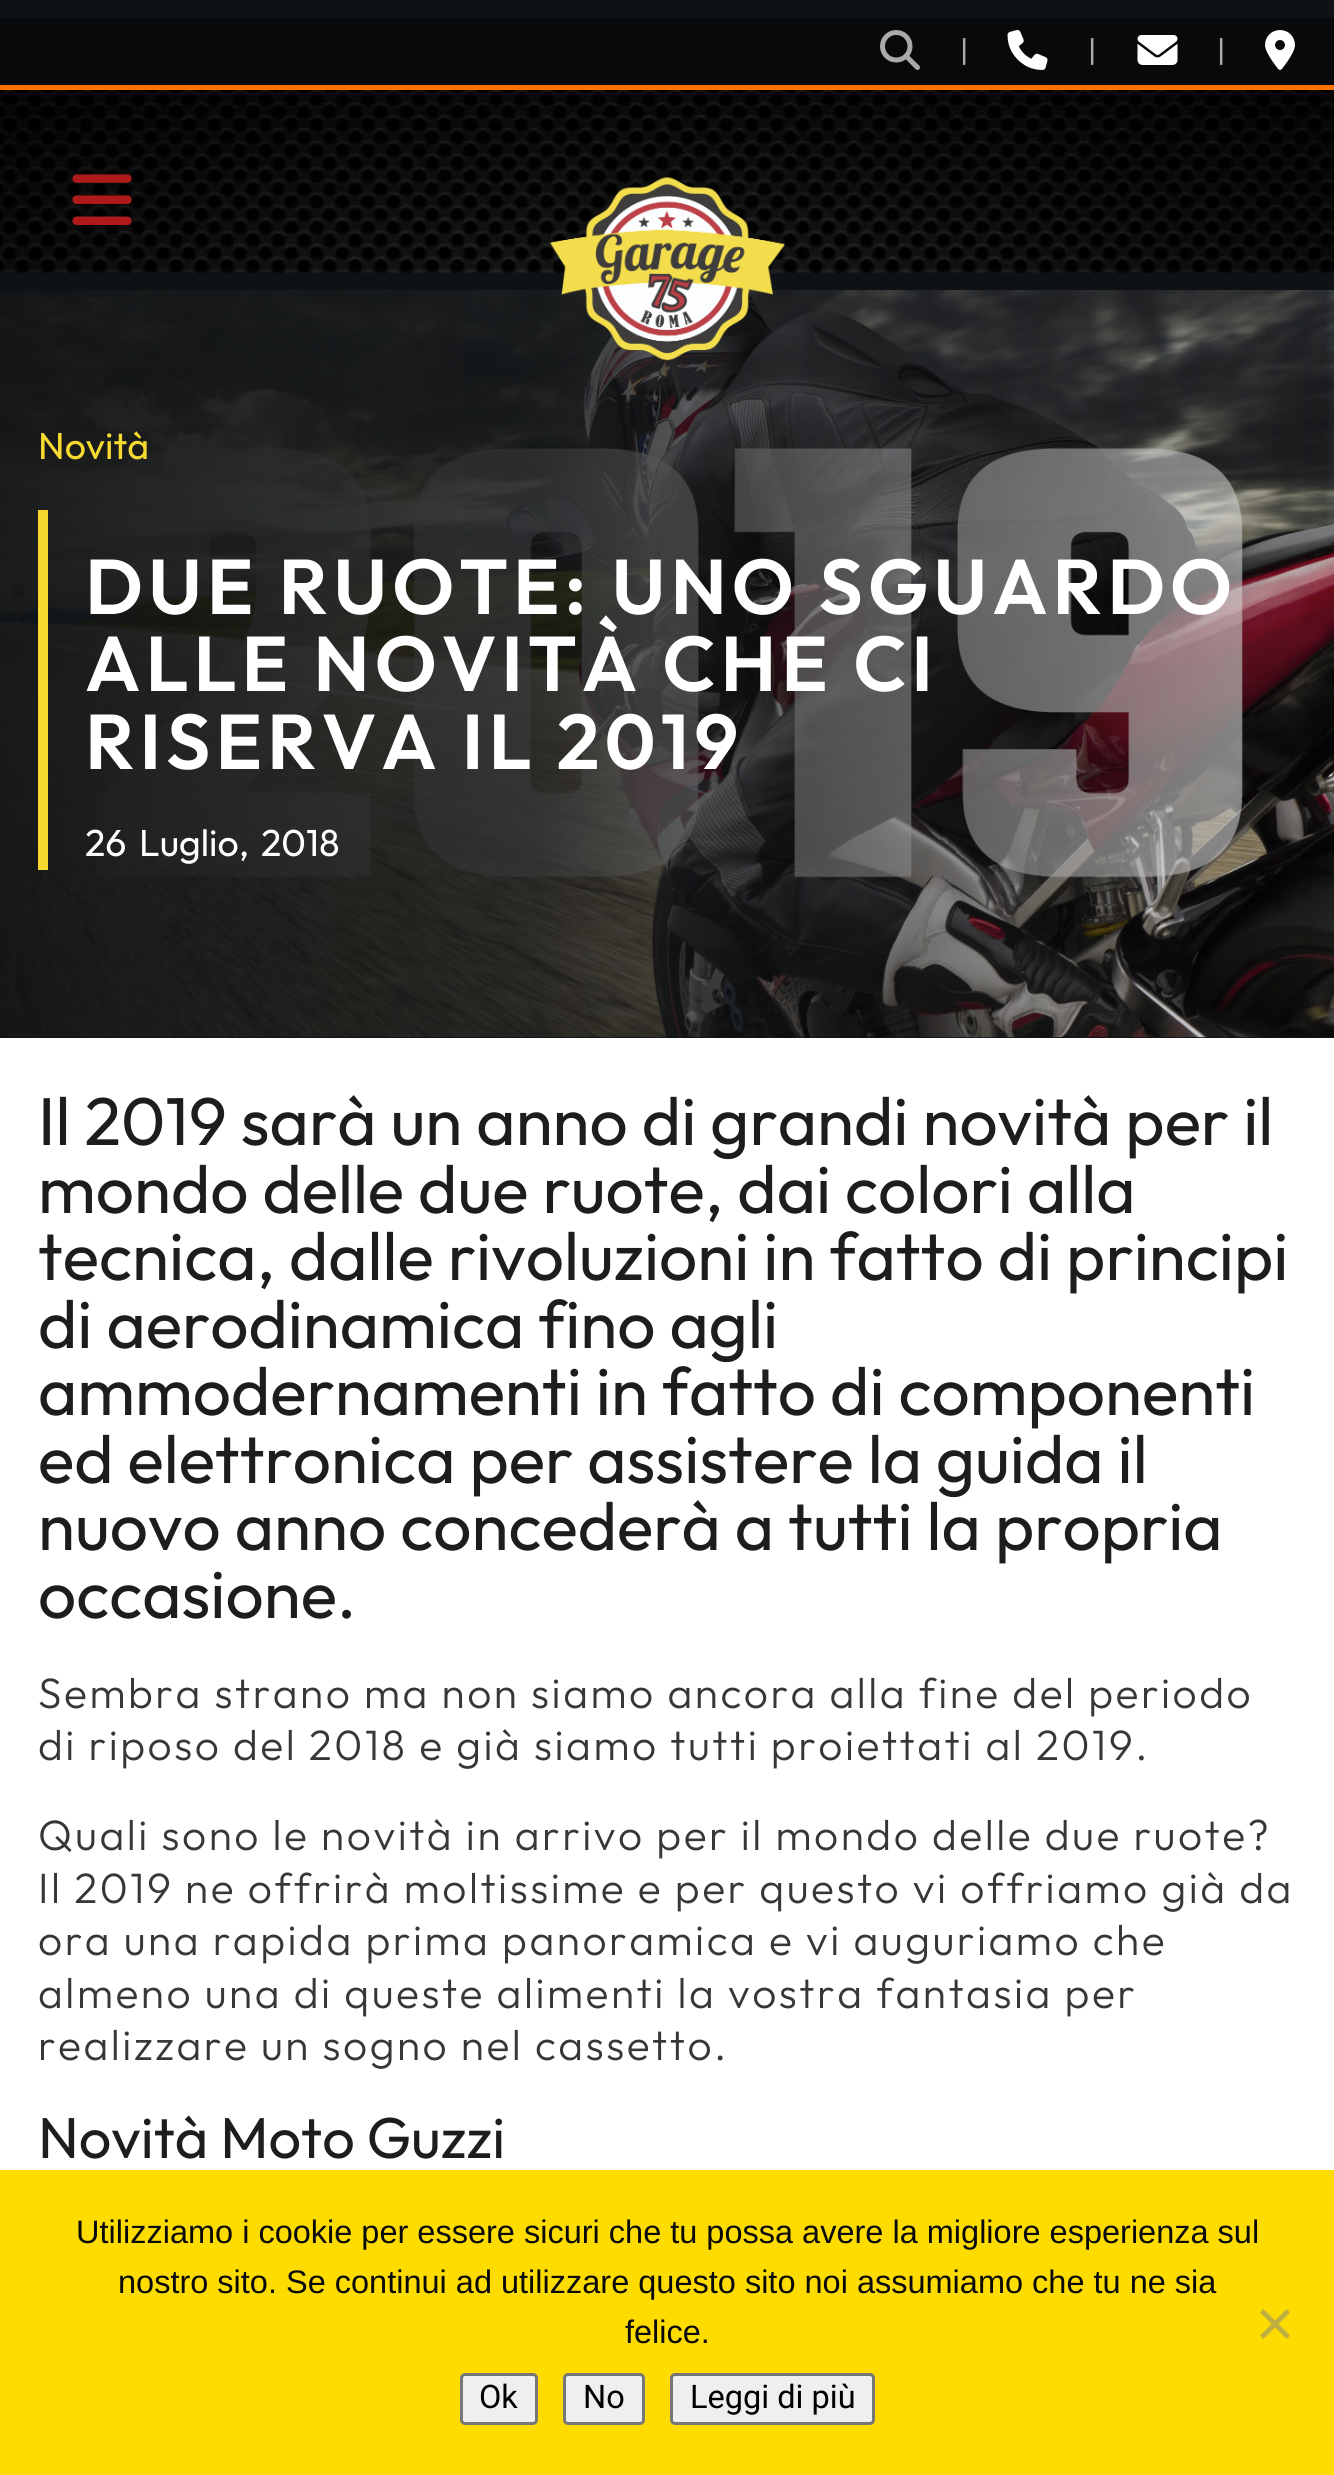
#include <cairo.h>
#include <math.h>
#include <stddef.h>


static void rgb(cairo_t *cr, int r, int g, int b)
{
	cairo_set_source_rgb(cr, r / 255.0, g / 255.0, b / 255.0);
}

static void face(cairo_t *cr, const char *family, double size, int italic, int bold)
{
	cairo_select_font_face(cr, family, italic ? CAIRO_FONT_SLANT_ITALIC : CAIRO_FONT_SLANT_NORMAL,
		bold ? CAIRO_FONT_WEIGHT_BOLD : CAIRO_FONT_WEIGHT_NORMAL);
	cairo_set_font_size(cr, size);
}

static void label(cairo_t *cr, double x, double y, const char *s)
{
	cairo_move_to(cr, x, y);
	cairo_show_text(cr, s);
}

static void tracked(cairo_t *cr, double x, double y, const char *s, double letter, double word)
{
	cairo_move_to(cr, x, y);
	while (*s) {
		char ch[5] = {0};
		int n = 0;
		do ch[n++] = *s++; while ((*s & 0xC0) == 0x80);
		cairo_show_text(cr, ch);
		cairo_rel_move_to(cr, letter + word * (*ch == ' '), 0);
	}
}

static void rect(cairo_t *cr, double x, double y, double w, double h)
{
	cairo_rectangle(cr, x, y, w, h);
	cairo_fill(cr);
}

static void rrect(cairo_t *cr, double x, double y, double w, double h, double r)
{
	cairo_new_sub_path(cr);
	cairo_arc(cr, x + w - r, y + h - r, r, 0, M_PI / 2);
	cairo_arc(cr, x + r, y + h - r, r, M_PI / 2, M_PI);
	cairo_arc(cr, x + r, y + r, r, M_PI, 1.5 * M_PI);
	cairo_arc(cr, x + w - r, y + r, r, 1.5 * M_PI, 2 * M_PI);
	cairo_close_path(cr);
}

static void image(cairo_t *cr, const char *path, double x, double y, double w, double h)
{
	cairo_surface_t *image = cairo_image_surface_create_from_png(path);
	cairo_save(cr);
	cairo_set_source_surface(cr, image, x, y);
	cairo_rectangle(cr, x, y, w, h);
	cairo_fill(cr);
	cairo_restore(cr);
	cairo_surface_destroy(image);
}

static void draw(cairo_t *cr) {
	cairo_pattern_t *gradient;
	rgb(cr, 14, 18, 22);
	cairo_paint(cr);
	rgb(cr, 7, 9, 11);
	rect(cr, 0, 18, 1334, 67);
	image(cr, "image0.png", 880, 30, 40, 40);
	face(cr, "Outfit", 30, 0, 0);
	rgb(cr, 170, 170, 170);
	tracked(cr, 960, 61, "|", 2.5, 0);
	image(cr, "image1.png", 1007, 30, 41, 40);
	tracked(cr, 1088, 61, "|", 2.5, 0);
	image(cr, "image2.png", 1137, 35, 41, 30);
	tracked(cr, 1217, 61, "|", 2.5, 0);
	image(cr, "image3.png", 1265, 30, 30, 40);
	rgb(cr, 255, 114, 0);
	rect(cr, 0, 85, 1334, 5);
	image(cr, "image4.png", 0, 90, 1334, 183);
	image(cr, "image7.png", 0, 290, 1334, 748);
	gradient = cairo_pattern_create_linear(0, 663, 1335, 663);
	cairo_pattern_add_color_stop_rgba(gradient, 0, 0.055, 0.063, 0.071, 0.95);
	cairo_pattern_add_color_stop_rgba(gradient, 0.4, 0.055, 0.063, 0.071, 0.8);
	cairo_pattern_add_color_stop_rgba(gradient, 1, 0.055, 0.063, 0.071, 0);
	cairo_set_source(cr, gradient);
	cairo_pattern_destroy(gradient);
	rect(cr, 0, 290, 1313, 748);
	image(cr, "image5.png", 550, 177, 235, 184);
	image(cr, "image6.png", 72, 174, 60, 51);
	face(cr, "Outfit", 37.5, 0, 0);
	rgb(cr, 246, 218, 48);
	label(cr, 38, 459, "Novità");
	rect(cr, 38, 510, 10, 360);
	face(cr, "Outfit SemiBold", 77.5, 0, 0);
	rgb(cr, 255, 255, 255);
	tracked(cr, 85, 614, "DUE RUOTE: UNO SGUARDO", 5, 0);
	tracked(cr, 85, 691, "ALLE NOVITÀ CHE CI", 5, 0);
	tracked(cr, 85, 769, "RISERVA IL 2019", 5, 0);
	face(cr, "Outfit", 37.5, 0, 0);
	label(cr, 85, 856, "26");
	label(cr, 139, 856, "Luglio,");
	label(cr, 261, 856, "2018");
	image(cr, "image8.png", 0, 1037, 1334, 1);
	rect(cr, 0, 1038, 1334, 1132);
	face(cr, "Outfit", 67.5, 0, 0);
	rgb(cr, 29, 29, 29);
	label(cr, 38, 1145, "Il 2019 sarà un anno di grandi novità per il");
	label(cr, 38, 1213, "mondo delle due ruote, dai colori alla");
	label(cr, 38, 1280, "tecnica, dalle rivoluzioni in fatto di principi");
	label(cr, 38, 1348, "di aerodinamica fino agli");
	label(cr, 38, 1415, "ammodernamenti in fatto di componenti");
	label(cr, 38, 1483, "ed elettronica per assistere la guida il");
	label(cr, 38, 1550, "nuovo anno concederà a tutti la propria");
	label(cr, 38, 1618, "occasione.");
	face(cr, "Outfit Light", 42.5, 0, 0);
	rgb(cr, 55, 55, 55);
	tracked(cr, 38, 1708, "Sembra strano ma non siamo ancora alla fine del periodo", 2.5, 0);
	tracked(cr, 38, 1760, "di riposo del 2018 e già siamo tutti proiettati al 2019.", 2.5, 0);
	tracked(cr, 38, 1850, "Quali sono le novità in arrivo per il mondo delle due ruote?", 2.5, 0);
	tracked(cr, 38, 1903, "Il 2019 ne offrirà moltissime e per questo vi offriamo già da", 2.5, 0);
	tracked(cr, 38, 1955, "ora una rapida prima panoramica e vi auguriamo che", 2.5, 0);
	tracked(cr, 38, 2008, "almeno una di queste alimenti la vostra fantasia per", 2.5, 0);
	tracked(cr, 38, 2060, "realizzare un sogno nel cassetto.", 2.5, 0);
	face(cr, "Outfit", 57.5, 0, 0);
	rgb(cr, 29, 29, 29);
	label(cr, 38, 2158, "Novità Moto Guzzi");
	rgb(cr, 255, 220, 0);
	rect(cr, 0, 2170, 1334, 305);
	face(cr, "Liberation Sans", 32.5, 0, 0);
	rgb(cr, 10, 10, 10);
	label(cr, 76, 2243, "Utilizziamo i cookie per essere sicuri che tu possa avere la migliore esperienza sul");
	label(cr, 118, 2293, "nostro sito. Se continui ad utilizzare questo sito noi assumiamo che tu ne sia");
	label(cr, 625, 2343, "felice.");
	rgb(cr, 192, 174, 64);
	cairo_new_path(cr);
	cairo_move_to(cr, 1286.5, 2309);
	cairo_line_to(cr, 1290, 2312.5);
	cairo_line_to(cr, 1263.5, 2339);
	cairo_line_to(cr, 1260, 2335.5);
	cairo_close_path(cr);
	cairo_fill(cr);
	cairo_new_path(cr);
	cairo_move_to(cr, 1260, 2312.5);
	cairo_line_to(cr, 1263.5, 2309);
	cairo_line_to(cr, 1290, 2335.5);
	cairo_line_to(cr, 1286.5, 2339);
	cairo_close_path(cr);
	cairo_fill(cr);
	rgb(cr, 239, 239, 239);
	rrect(cr, 461.5, 2374.5, 75, 49, 3.5);
	cairo_fill_preserve(cr);
	rgb(cr, 118, 118, 118);
	cairo_set_line_width(cr, 3);
	cairo_stroke(cr);
	face(cr, "Roboto", 32.5, 0, 0);
	rgb(cr, 0, 0, 0);
	label(cr, 479, 2408, "Ok");
	rgb(cr, 239, 239, 239);
	rrect(cr, 564.5, 2374.5, 79, 49, 3.5);
	cairo_fill_preserve(cr);
	rgb(cr, 118, 118, 118);
	cairo_stroke(cr);
	rgb(cr, 0, 0, 0);
	label(cr, 583, 2408, "No");
	rgb(cr, 239, 239, 239);
	rrect(cr, 671.5, 2374.5, 202, 49, 3.5);
	cairo_fill_preserve(cr);
	rgb(cr, 118, 118, 118);
	cairo_stroke(cr);
	rgb(cr, 0, 0, 0);
	label(cr, 690, 2408, "Leggi di più");
}

int main(void) {
	cairo_surface_t *surface = cairo_image_surface_create(CAIRO_FORMAT_RGB24, 1334, 2475);
	cairo_t *cr = cairo_create(surface);
	cairo_font_options_t *options = cairo_font_options_create();
	cairo_font_options_set_hint_metrics(options, CAIRO_HINT_METRICS_OFF);
	cairo_font_options_set_hint_style(options, CAIRO_HINT_STYLE_NONE);
	cairo_set_font_options(cr, options);
	cairo_set_miter_limit(cr, 4);
	draw(cr);
	cairo_surface_write_to_png(surface, "render.png");
	cairo_font_options_destroy(options);
	cairo_destroy(cr);
	cairo_surface_destroy(surface);
	return 0;
}
